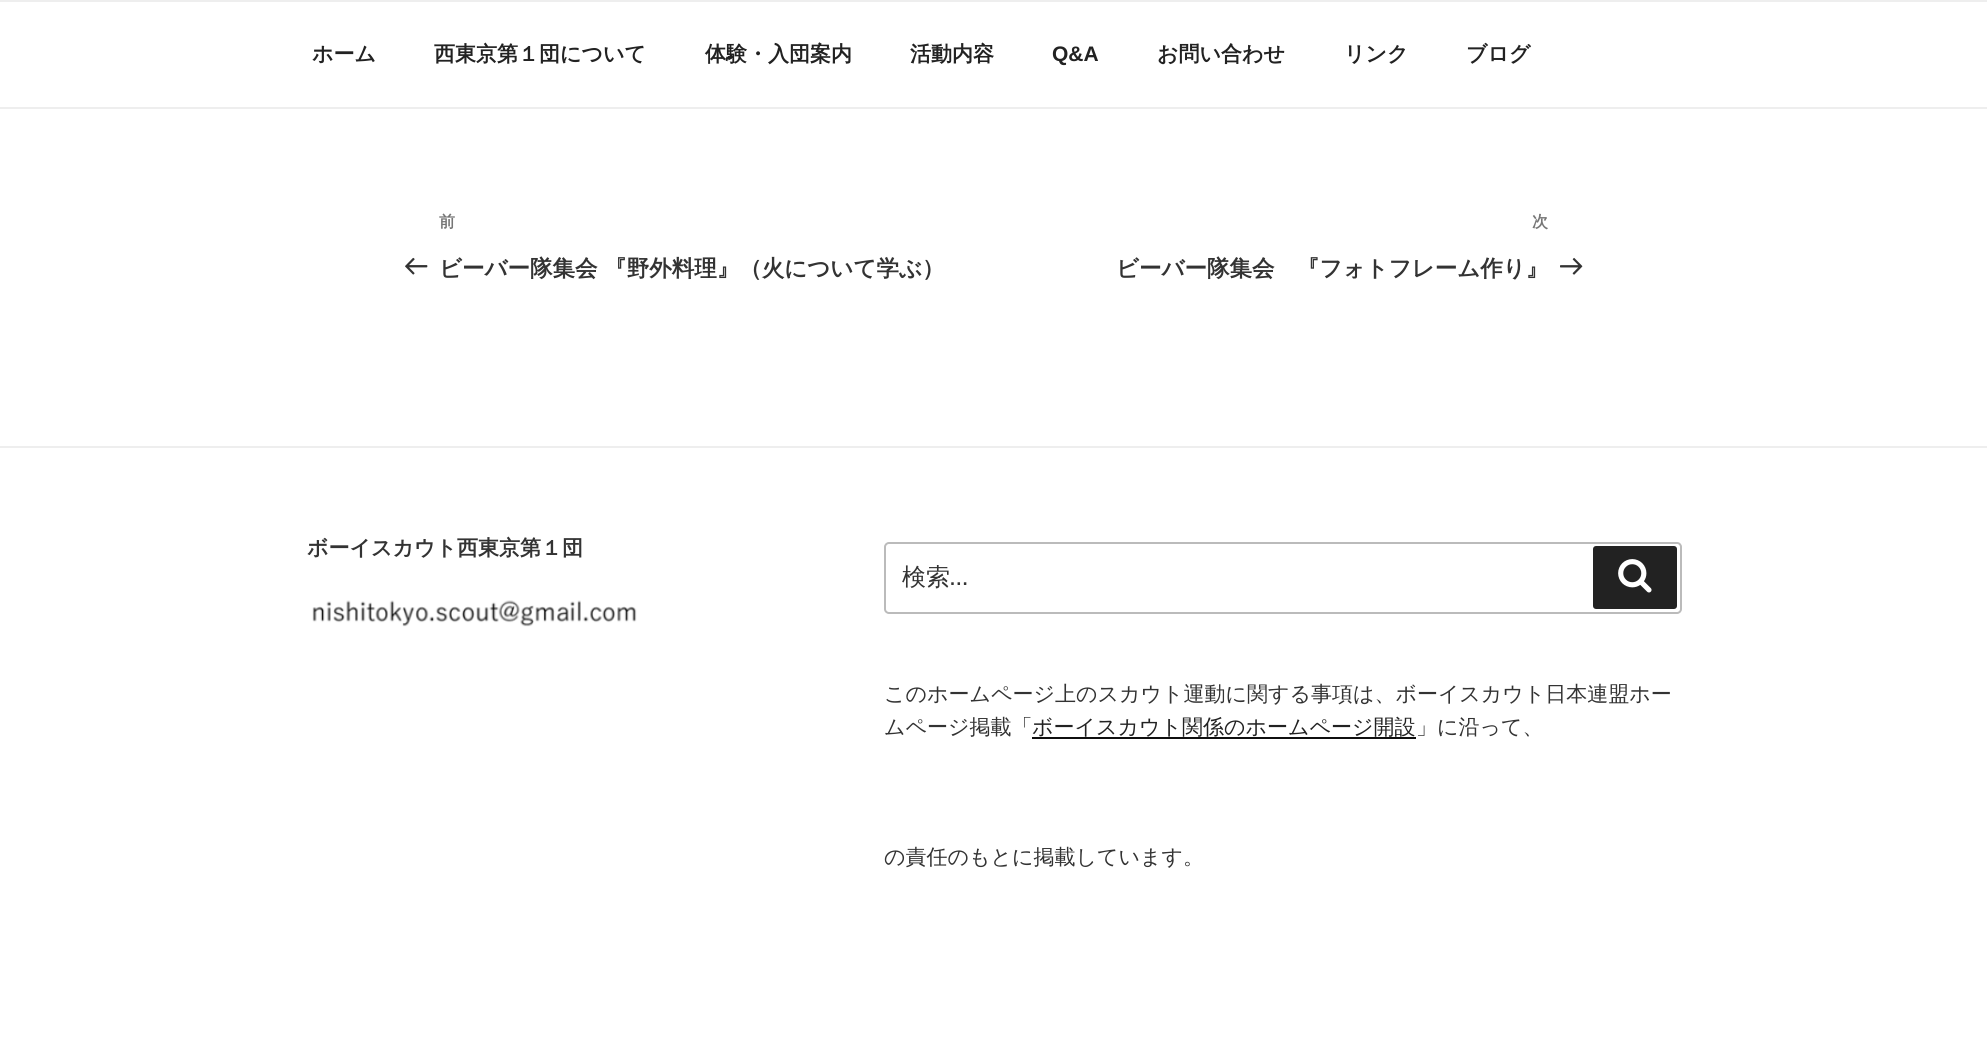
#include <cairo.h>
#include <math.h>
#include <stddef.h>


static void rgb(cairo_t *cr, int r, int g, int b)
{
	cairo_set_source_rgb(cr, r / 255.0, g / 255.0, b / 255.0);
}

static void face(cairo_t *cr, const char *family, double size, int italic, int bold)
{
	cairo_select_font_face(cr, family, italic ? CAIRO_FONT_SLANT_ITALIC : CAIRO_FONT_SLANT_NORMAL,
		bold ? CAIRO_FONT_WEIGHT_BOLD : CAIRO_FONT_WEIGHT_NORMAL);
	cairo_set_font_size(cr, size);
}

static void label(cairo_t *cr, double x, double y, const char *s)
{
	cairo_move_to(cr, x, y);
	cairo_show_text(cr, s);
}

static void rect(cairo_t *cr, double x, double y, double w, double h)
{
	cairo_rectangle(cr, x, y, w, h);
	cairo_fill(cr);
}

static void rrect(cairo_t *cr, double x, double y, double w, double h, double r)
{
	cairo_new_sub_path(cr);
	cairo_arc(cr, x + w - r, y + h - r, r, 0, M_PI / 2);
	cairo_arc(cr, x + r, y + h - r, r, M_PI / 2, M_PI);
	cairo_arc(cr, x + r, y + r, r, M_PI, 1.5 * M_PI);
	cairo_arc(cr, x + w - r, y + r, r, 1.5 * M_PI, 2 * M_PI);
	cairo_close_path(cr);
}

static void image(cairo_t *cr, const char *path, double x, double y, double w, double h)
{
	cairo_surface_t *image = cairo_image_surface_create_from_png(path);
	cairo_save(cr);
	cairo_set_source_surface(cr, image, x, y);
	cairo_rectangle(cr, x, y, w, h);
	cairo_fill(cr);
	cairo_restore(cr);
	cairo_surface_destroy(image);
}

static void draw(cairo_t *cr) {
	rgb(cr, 255, 255, 255);
	cairo_paint(cr);
	rgb(cr, 238, 238, 238);
	rect(cr, 0, 0, 1987, 2);
	rect(cr, 0, 107, 1987, 2);
	face(cr, "WenQuanYi Zen Hei", 21, 0, 1);
	rgb(cr, 34, 34, 34);
	label(cr, 312, 61, "ホーム");
	label(cr, 434, 61, "西東京第１団について");
	label(cr, 705, 61, "体験・入団案内");
	label(cr, 910, 61, "活動内容");
	face(cr, "Liberation Sans", 21, 0, 1);
	label(cr, 1052, 61, "Q&A");
	face(cr, "WenQuanYi Zen Hei", 21, 0, 1);
	label(cr, 1157, 61, "お問い合わせ");
	label(cr, 1344, 61, "リンク");
	label(cr, 1466, 61, "ブログ");
	face(cr, "WenQuanYi Zen Hei", 16, 0, 1);
	rgb(cr, 118, 118, 118);
	label(cr, 439, 227, "前");
	image(cr, "image0.png", 405, 257, 23, 18);
	face(cr, "WenQuanYi Zen Hei", 22.5, 0, 1);
	rgb(cr, 51, 51, 51);
	label(cr, 439, 276, "ビーバー隊集会 『野外料理』（火について学ぶ）");
	face(cr, "WenQuanYi Zen Hei", 16, 0, 1);
	rgb(cr, 118, 118, 118);
	label(cr, 1532, 227, "次");
	face(cr, "WenQuanYi Zen Hei", 22.5, 0, 1);
	rgb(cr, 51, 51, 51);
	label(cr, 1116, 276, "ビーバー隊集会　『フォトフレーム作り』");
	image(cr, "image1.png", 1560, 257, 23, 18);
	rgb(cr, 238, 238, 238);
	rect(cr, 0, 446, 1987, 2);
	face(cr, "WenQuanYi Zen Hei", 21, 0, 1);
	rgb(cr, 51, 51, 51);
	label(cr, 307, 555, "ボーイスカウト西東京第１団");
	image(cr, "image2.png", 312, 600, 325, 27);
	rrect(cr, 885, 543, 796, 70, 4);
	rgb(cr, 187, 187, 187);
	cairo_stroke(cr);
	face(cr, "WenQuanYi Zen Hei Medium", 24, 0, 0);
	rgb(cr, 51, 51, 51);
	label(cr, 902, 585, "検索");
	face(cr, "Libre Franklin", 24, 0, 0);
	label(cr, 950, 585, "…");
	rgb(cr, 34, 34, 34);
	rrect(cr, 1593, 546, 84, 63, 3);
	cairo_fill(cr);
	image(cr, "image3.png", 1618, 559, 34, 34);
	face(cr, "WenQuanYi Zen Hei Medium", 21, 0, 0);
	rgb(cr, 51, 51, 51);
	label(cr, 884, 701, "このホームページ上のスカウト運動に関する事項は、ボーイスカウト日本連盟ホー");
	label(cr, 884, 734, "ムページ掲載「");
	rgb(cr, 34, 34, 34);
	label(cr, 1032, 734, "ボーイスカウト関係のホームページ開設");
	rgb(cr, 15, 15, 15);
	rect(cr, 1032, 737, 384, 2);
	rgb(cr, 51, 51, 51);
	label(cr, 1416, 734, "」に沿って、");
	label(cr, 884, 864, "の責任のもとに掲載しています。");
}

int main(void) {
	cairo_surface_t *surface = cairo_image_surface_create(CAIRO_FORMAT_RGB24, 1987, 1039);
	cairo_t *cr = cairo_create(surface);
	cairo_font_options_t *options = cairo_font_options_create();
	cairo_font_options_set_hint_metrics(options, CAIRO_HINT_METRICS_OFF);
	cairo_font_options_set_hint_style(options, CAIRO_HINT_STYLE_NONE);
	cairo_set_font_options(cr, options);
	cairo_set_miter_limit(cr, 4);
	draw(cr);
	cairo_surface_write_to_png(surface, "render.png");
	cairo_font_options_destroy(options);
	cairo_destroy(cr);
	cairo_surface_destroy(surface);
	return 0;
}
